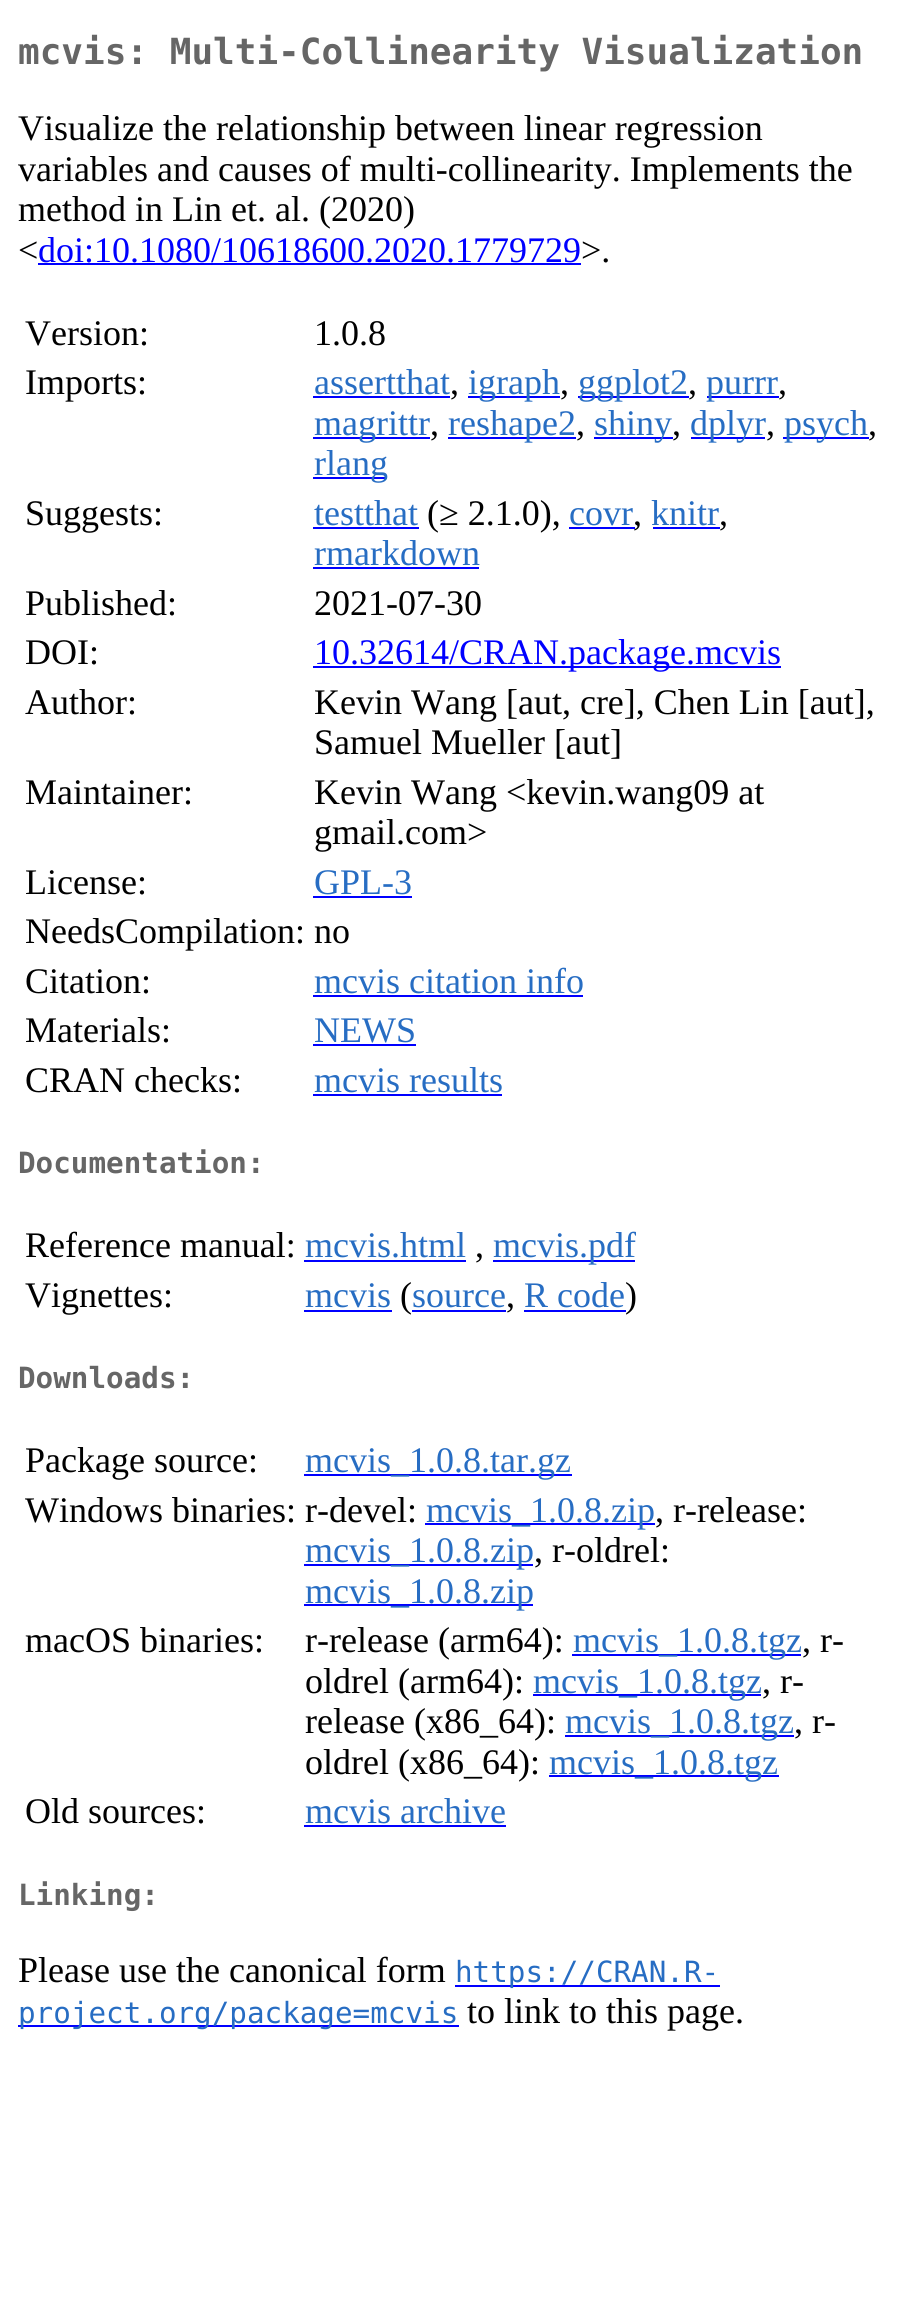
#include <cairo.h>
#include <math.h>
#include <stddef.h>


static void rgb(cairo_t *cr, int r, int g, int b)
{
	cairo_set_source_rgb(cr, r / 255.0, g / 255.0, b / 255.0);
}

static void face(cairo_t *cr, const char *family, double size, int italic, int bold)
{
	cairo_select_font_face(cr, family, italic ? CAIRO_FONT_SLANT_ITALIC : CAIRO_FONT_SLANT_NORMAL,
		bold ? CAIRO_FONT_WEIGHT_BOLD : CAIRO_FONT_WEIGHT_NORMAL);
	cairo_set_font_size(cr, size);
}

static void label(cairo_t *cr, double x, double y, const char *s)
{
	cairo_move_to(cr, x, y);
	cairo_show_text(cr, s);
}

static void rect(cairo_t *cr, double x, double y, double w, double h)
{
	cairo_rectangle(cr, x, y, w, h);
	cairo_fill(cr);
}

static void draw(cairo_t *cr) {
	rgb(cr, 255, 255, 255);
	cairo_paint(cr);
	face(cr, "DejaVu Sans Mono", 36, 0, 1);
	rgb(cr, 102, 102, 102);
	label(cr, 18, 64, "mcvis: Multi-Collinearity Visualization");
	face(cr, "Liberation Serif", 36, 0, 0);
	rgb(cr, 0, 0, 0);
	label(cr, 18, 140, "Visualize the relationship between linear regression");
	label(cr, 18, 181, "variables and causes of multi-collinearity. Implements the");
	label(cr, 18, 221, "method in Lin et. al. (2020)");
	label(cr, 18, 262, "<");
	rgb(cr, 0, 0, 255);
	label(cr, 38, 262, "doi:10.1080/10618600.2020.1779729");
	rect(cr, 38, 263, 543, 2);
	rgb(cr, 0, 0, 0);
	label(cr, 581, 262, ">.");
	label(cr, 25, 345, "Version:");
	label(cr, 314, 345, "1.0.8");
	label(cr, 25, 394, "Imports:");
	rgb(cr, 39, 109, 195);
	label(cr, 314, 394, "assertthat");
	rgb(cr, 0, 0, 255);
	rect(cr, 313, 396, 137, 2);
	rgb(cr, 0, 0, 0);
	label(cr, 450, 394, ",");
	rgb(cr, 0, 0, 255);
	rect(cr, 468, 396, 92, 2);
	rgb(cr, 39, 109, 195);
	label(cr, 468, 394, "igraph");
	rgb(cr, 0, 0, 0);
	label(cr, 560, 394, ",");
	rgb(cr, 0, 0, 255);
	rect(cr, 578, 396, 111, 2);
	rgb(cr, 39, 109, 195);
	label(cr, 578, 394, "ggplot2");
	rgb(cr, 0, 0, 0);
	label(cr, 688, 394, ",");
	rgb(cr, 0, 0, 255);
	rect(cr, 707, 396, 72, 2);
	rgb(cr, 39, 109, 195);
	label(cr, 706, 394, "purrr");
	rgb(cr, 0, 0, 0);
	label(cr, 778, 394, ",");
	rgb(cr, 0, 0, 255);
	rect(cr, 313, 437, 117, 2);
	rgb(cr, 39, 109, 195);
	label(cr, 314, 435, "magrittr");
	rgb(cr, 0, 0, 0);
	label(cr, 430, 435, ",");
	rgb(cr, 0, 0, 255);
	rect(cr, 448, 437, 128, 2);
	rgb(cr, 39, 109, 195);
	label(cr, 448, 435, "reshape2");
	rgb(cr, 0, 0, 0);
	label(cr, 576, 435, ",");
	rgb(cr, 0, 0, 255);
	rect(cr, 594, 437, 79, 2);
	rgb(cr, 39, 109, 195);
	label(cr, 594, 435, "shiny");
	rgb(cr, 0, 0, 0);
	label(cr, 672, 435, ",");
	rgb(cr, 0, 0, 255);
	rect(cr, 691, 437, 74, 2);
	rgb(cr, 39, 109, 195);
	label(cr, 690, 435, "dplyr");
	rgb(cr, 0, 0, 0);
	label(cr, 766, 435, ",");
	rgb(cr, 0, 0, 255);
	rect(cr, 783, 437, 86, 2);
	rgb(cr, 39, 109, 195);
	label(cr, 784, 435, "psych");
	rgb(cr, 0, 0, 0);
	label(cr, 868, 435, ",");
	rgb(cr, 0, 0, 255);
	rect(cr, 313, 477, 74, 2);
	rgb(cr, 39, 109, 195);
	label(cr, 314, 475, "rlang");
	rgb(cr, 0, 0, 0);
	label(cr, 25, 525, "Suggests:");
	rgb(cr, 39, 109, 195);
	label(cr, 314, 525, "testthat");
	rgb(cr, 0, 0, 255);
	rect(cr, 313, 527, 106, 2);
	rgb(cr, 0, 0, 0);
	label(cr, 427, 525, "(≥ 2.1.0),");
	rgb(cr, 39, 109, 195);
	label(cr, 569, 525, "covr");
	rgb(cr, 0, 0, 255);
	rect(cr, 569, 527, 66, 2);
	rgb(cr, 0, 0, 0);
	label(cr, 633, 525, ",");
	rgb(cr, 39, 109, 195);
	label(cr, 651, 525, "knitr");
	rgb(cr, 0, 0, 255);
	rect(cr, 653, 527, 67, 2);
	rgb(cr, 0, 0, 0);
	label(cr, 719, 525, ",");
	rgb(cr, 39, 109, 195);
	label(cr, 314, 565, "rmarkdown");
	rgb(cr, 0, 0, 255);
	rect(cr, 313, 567, 166, 2);
	rgb(cr, 0, 0, 0);
	label(cr, 25, 615, "Published:");
	label(cr, 314, 615, "2021-07-30");
	label(cr, 25, 664, "DOI:");
	rgb(cr, 0, 0, 255);
	rect(cr, 313, 666, 468, 2);
	label(cr, 314, 664, "10.32614/CRAN.package.mcvis");
	rgb(cr, 0, 0, 0);
	label(cr, 25, 714, "Author:");
	label(cr, 314, 714, "Kevin Wang [aut, cre], Chen Lin [aut],");
	label(cr, 314, 754, "Samuel Mueller [aut]");
	label(cr, 25, 804, "Maintainer:");
	label(cr, 314, 804, "Kevin Wang <kevin.wang09 at");
	label(cr, 314, 844, "gmail.com>");
	label(cr, 25, 894, "License:");
	rgb(cr, 39, 109, 195);
	label(cr, 314, 894, "GPL-3");
	rgb(cr, 0, 0, 255);
	rect(cr, 313, 896, 99, 2);
	rgb(cr, 0, 0, 0);
	label(cr, 25, 943, "NeedsCompilation: no");
	label(cr, 25, 993, "Citation:");
	rgb(cr, 39, 109, 195);
	label(cr, 314, 993, "mcvis citation info");
	rgb(cr, 0, 0, 255);
	rect(cr, 313, 995, 270, 2);
	rgb(cr, 0, 0, 0);
	label(cr, 25, 1042, "Materials:");
	rgb(cr, 39, 109, 195);
	label(cr, 314, 1042, "NEWS");
	rgb(cr, 0, 0, 255);
	rect(cr, 313, 1044, 103, 2);
	rgb(cr, 0, 0, 0);
	label(cr, 25, 1092, "CRAN checks:");
	rgb(cr, 39, 109, 195);
	label(cr, 314, 1092, "mcvis results");
	rgb(cr, 0, 0, 255);
	rect(cr, 313, 1094, 189, 2);
	face(cr, "DejaVu Sans Mono", 29.25, 0, 1);
	rgb(cr, 102, 102, 102);
	label(cr, 18, 1173, "Documentation:");
	face(cr, "Liberation Serif", 36, 0, 0);
	rgb(cr, 0, 0, 0);
	label(cr, 25, 1257, "Reference manual:");
	rgb(cr, 39, 109, 195);
	label(cr, 305, 1257, "mcvis.html");
	rgb(cr, 0, 0, 255);
	rect(cr, 304, 1260, 162, 2);
	rgb(cr, 0, 0, 0);
	label(cr, 475, 1257, ",");
	rgb(cr, 0, 0, 255);
	rect(cr, 493, 1260, 142, 2);
	rgb(cr, 39, 109, 195);
	label(cr, 493, 1257, "mcvis.pdf");
	rgb(cr, 0, 0, 0);
	label(cr, 25, 1307, "Vignettes:");
	rgb(cr, 39, 109, 195);
	label(cr, 305, 1307, "mcvis");
	rgb(cr, 0, 0, 255);
	rect(cr, 304, 1310, 88, 2);
	rgb(cr, 0, 0, 0);
	label(cr, 400, 1307, "(");
	rgb(cr, 39, 109, 195);
	label(cr, 412, 1307, "source");
	rgb(cr, 0, 0, 255);
	rect(cr, 412, 1310, 94, 2);
	rgb(cr, 0, 0, 0);
	label(cr, 506, 1307, ",");
	rgb(cr, 39, 109, 195);
	label(cr, 524, 1307, "R code");
	rgb(cr, 0, 0, 255);
	rect(cr, 524, 1310, 102, 2);
	rgb(cr, 0, 0, 0);
	label(cr, 625, 1307, ")");
	face(cr, "DejaVu Sans Mono", 29.25, 0, 1);
	rgb(cr, 102, 102, 102);
	label(cr, 18, 1388, "Downloads:");
	face(cr, "Liberation Serif", 36, 0, 0);
	rgb(cr, 0, 0, 0);
	label(cr, 25, 1472, "Package source:");
	rgb(cr, 0, 0, 255);
	rect(cr, 304, 1474, 268, 2);
	rgb(cr, 39, 109, 195);
	label(cr, 305, 1472, "mcvis_1.0.8.tar.gz");
	rgb(cr, 0, 0, 0);
	label(cr, 25, 1522, "Windows binaries: r-devel:");
	rgb(cr, 0, 0, 255);
	rect(cr, 425, 1523, 230, 2);
	rgb(cr, 39, 109, 195);
	label(cr, 426, 1522, "mcvis_1.0.8.zip");
	rgb(cr, 0, 0, 0);
	label(cr, 655, 1522, ", r-release:");
	rgb(cr, 0, 0, 255);
	rect(cr, 304, 1564, 229, 2);
	rgb(cr, 39, 109, 195);
	label(cr, 305, 1562, "mcvis_1.0.8.zip");
	rgb(cr, 0, 0, 0);
	label(cr, 534, 1562, ", r-oldrel:");
	rgb(cr, 0, 0, 255);
	rect(cr, 304, 1604, 229, 2);
	rgb(cr, 39, 109, 195);
	label(cr, 305, 1603, "mcvis_1.0.8.zip");
	rgb(cr, 0, 0, 0);
	label(cr, 25, 1652, "macOS binaries:");
	label(cr, 305, 1652, "r-release (arm64):");
	rgb(cr, 0, 0, 255);
	rect(cr, 572, 1654, 229, 2);
	rgb(cr, 39, 109, 195);
	label(cr, 573, 1652, "mcvis_1.0.8.tgz");
	rgb(cr, 0, 0, 0);
	label(cr, 802, 1652, ", r-");
	label(cr, 305, 1693, "oldrel (arm64):");
	rgb(cr, 0, 0, 255);
	rect(cr, 533, 1694, 228, 2);
	rgb(cr, 39, 109, 195);
	label(cr, 533, 1693, "mcvis_1.0.8.tgz");
	rgb(cr, 0, 0, 0);
	label(cr, 762, 1693, ", r-");
	label(cr, 305, 1733, "release (x86_64):");
	rgb(cr, 0, 0, 255);
	rect(cr, 565, 1735, 229, 2);
	rgb(cr, 39, 109, 195);
	label(cr, 565, 1733, "mcvis_1.0.8.tgz");
	rgb(cr, 0, 0, 0);
	label(cr, 794, 1733, ", r-");
	label(cr, 305, 1774, "oldrel (x86_64):");
	rgb(cr, 0, 0, 255);
	rect(cr, 549, 1775, 230, 2);
	rgb(cr, 39, 109, 195);
	label(cr, 549, 1774, "mcvis_1.0.8.tgz");
	rgb(cr, 0, 0, 0);
	label(cr, 25, 1823, "Old sources:");
	rgb(cr, 39, 109, 195);
	label(cr, 305, 1823, "mcvis archive");
	rgb(cr, 0, 0, 255);
	rect(cr, 304, 1825, 202, 2);
	face(cr, "DejaVu Sans Mono", 29.25, 0, 1);
	rgb(cr, 102, 102, 102);
	label(cr, 18, 1905, "Linking:");
	face(cr, "Liberation Serif", 36, 0, 0);
	rgb(cr, 0, 0, 0);
	label(cr, 18, 1982, "Please use the canonical form");
	rgb(cr, 0, 0, 255);
	rect(cr, 455, 1985, 265, 2);
	face(cr, "DejaVu Sans Mono", 29.25, 0, 0);
	rgb(cr, 39, 109, 195);
	label(cr, 455, 1982, "https://CRAN.R-");
	rgb(cr, 0, 0, 255);
	rect(cr, 18, 2025, 441, 2);
	rgb(cr, 39, 109, 195);
	label(cr, 18, 2023, "project.org/package=mcvis");
	face(cr, "Liberation Serif", 36, 0, 0);
	rgb(cr, 0, 0, 0);
	label(cr, 467, 2023, "to link to this page.");
}

int main(void) {
	cairo_surface_t *surface = cairo_image_surface_create(CAIRO_FORMAT_RGB24, 913, 2300);
	cairo_t *cr = cairo_create(surface);
	cairo_font_options_t *options = cairo_font_options_create();
	cairo_font_options_set_hint_metrics(options, CAIRO_HINT_METRICS_OFF);
	cairo_font_options_set_hint_style(options, CAIRO_HINT_STYLE_NONE);
	cairo_set_font_options(cr, options);
	cairo_set_miter_limit(cr, 4);
	draw(cr);
	cairo_surface_write_to_png(surface, "render.png");
	cairo_font_options_destroy(options);
	cairo_destroy(cr);
	cairo_surface_destroy(surface);
	return 0;
}
